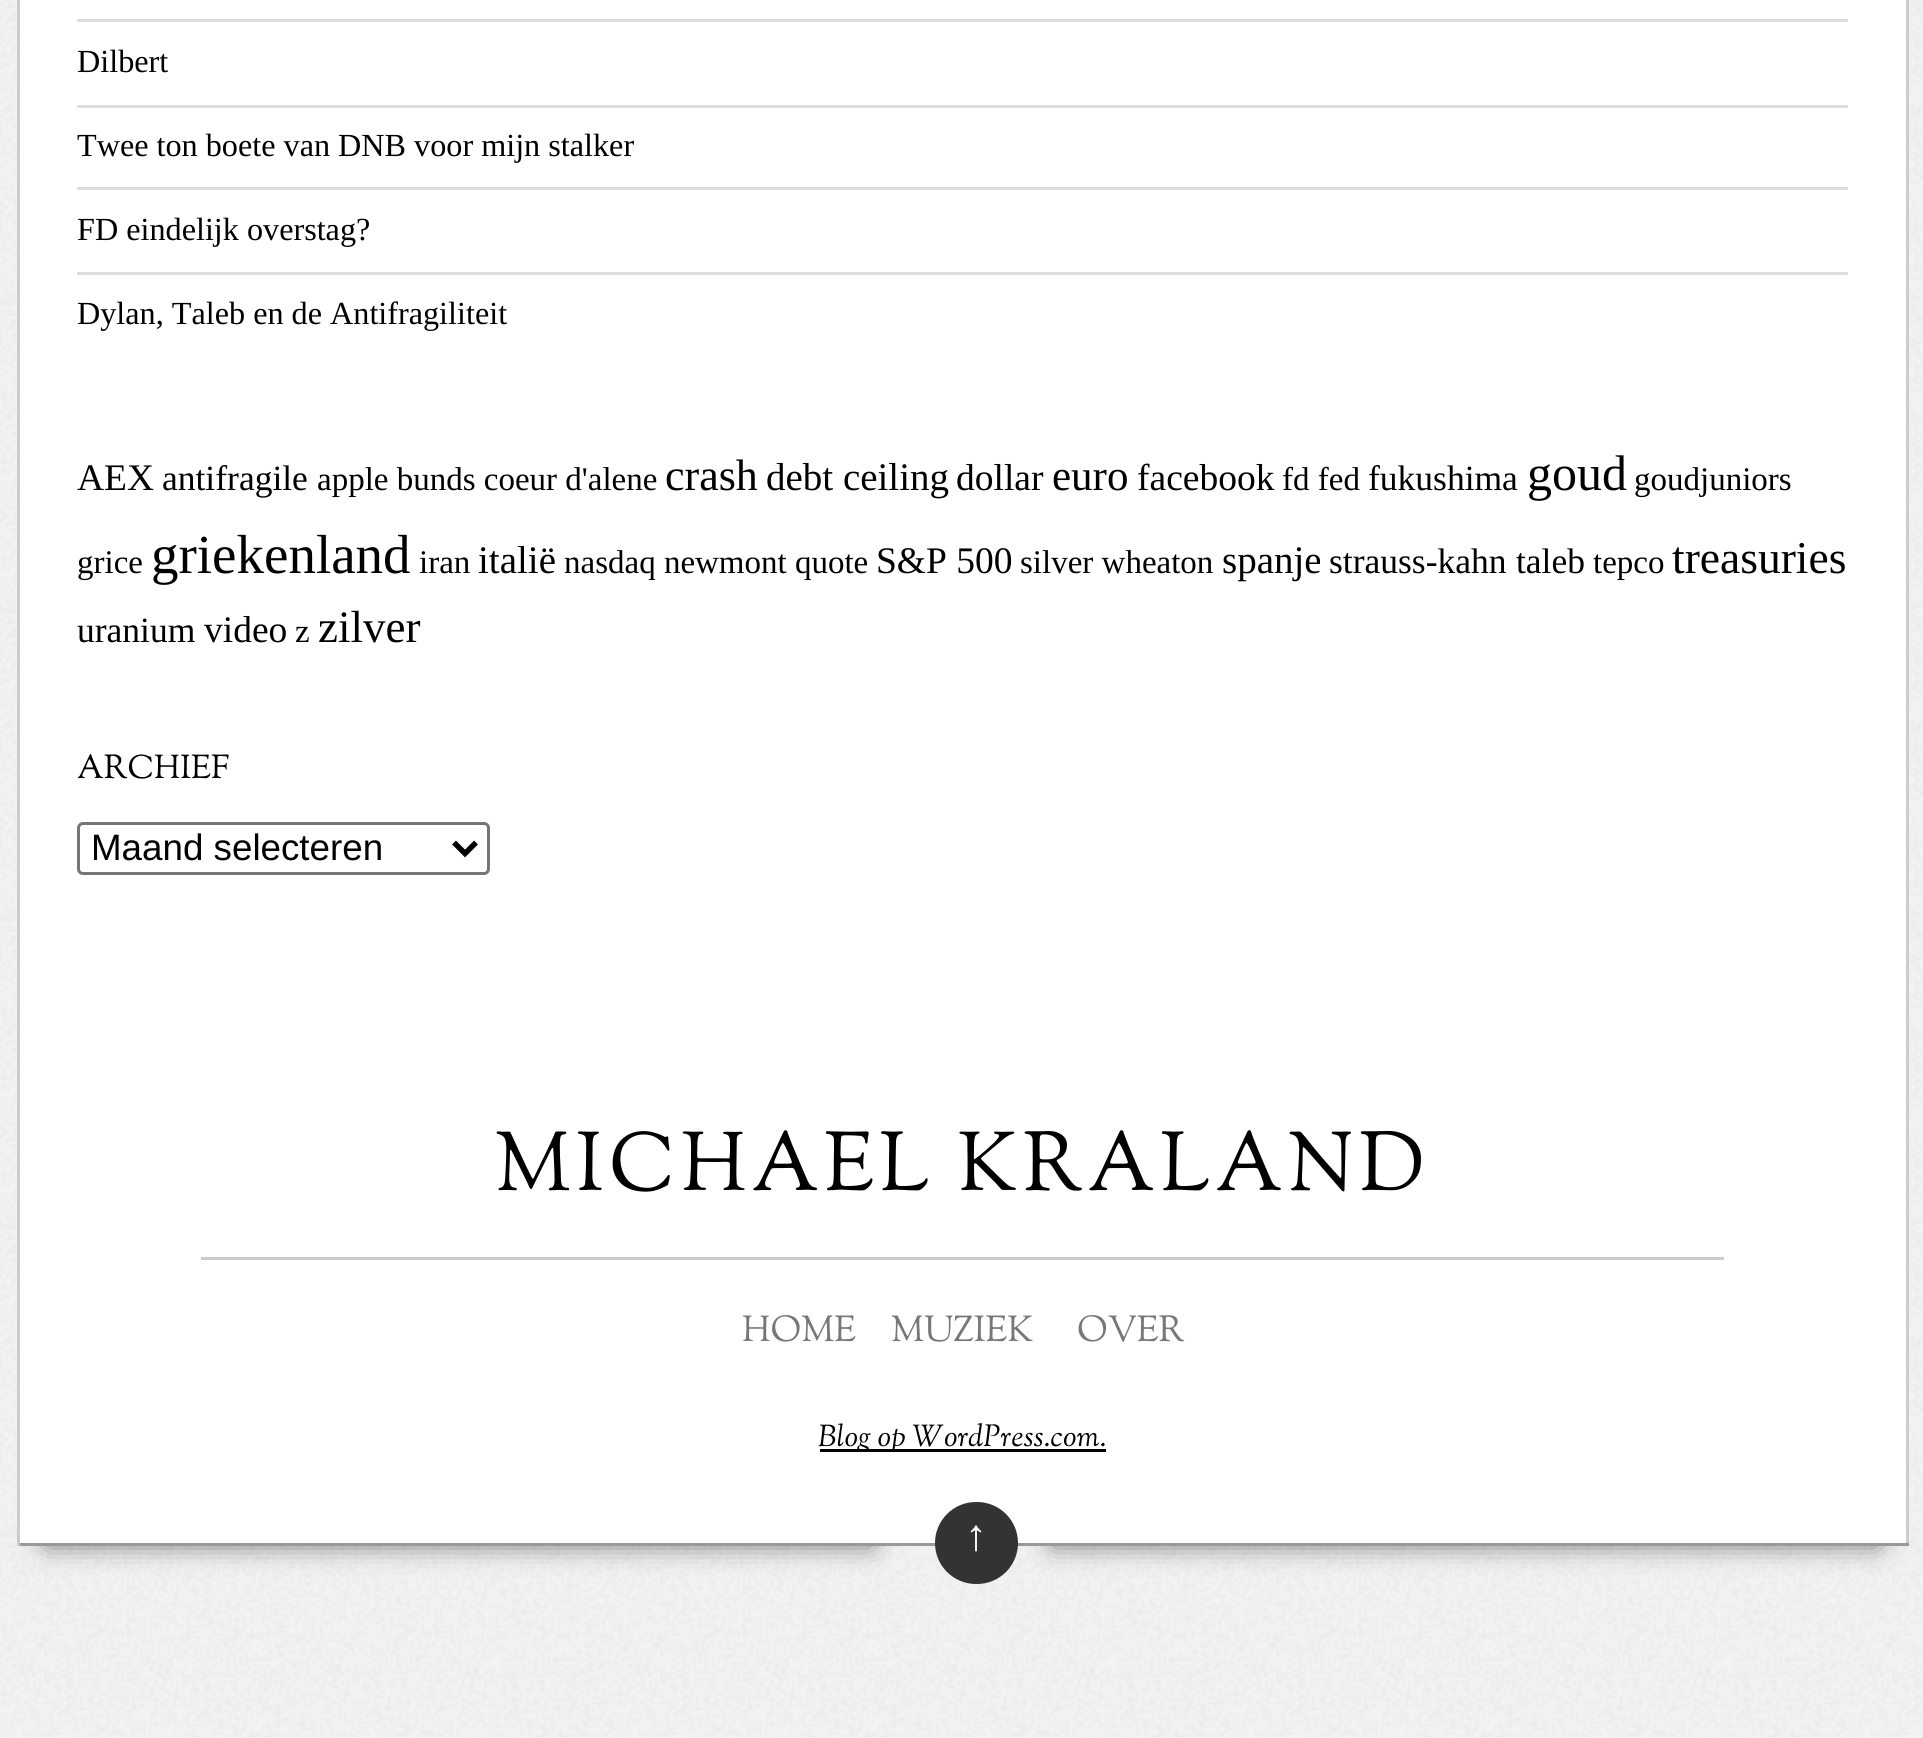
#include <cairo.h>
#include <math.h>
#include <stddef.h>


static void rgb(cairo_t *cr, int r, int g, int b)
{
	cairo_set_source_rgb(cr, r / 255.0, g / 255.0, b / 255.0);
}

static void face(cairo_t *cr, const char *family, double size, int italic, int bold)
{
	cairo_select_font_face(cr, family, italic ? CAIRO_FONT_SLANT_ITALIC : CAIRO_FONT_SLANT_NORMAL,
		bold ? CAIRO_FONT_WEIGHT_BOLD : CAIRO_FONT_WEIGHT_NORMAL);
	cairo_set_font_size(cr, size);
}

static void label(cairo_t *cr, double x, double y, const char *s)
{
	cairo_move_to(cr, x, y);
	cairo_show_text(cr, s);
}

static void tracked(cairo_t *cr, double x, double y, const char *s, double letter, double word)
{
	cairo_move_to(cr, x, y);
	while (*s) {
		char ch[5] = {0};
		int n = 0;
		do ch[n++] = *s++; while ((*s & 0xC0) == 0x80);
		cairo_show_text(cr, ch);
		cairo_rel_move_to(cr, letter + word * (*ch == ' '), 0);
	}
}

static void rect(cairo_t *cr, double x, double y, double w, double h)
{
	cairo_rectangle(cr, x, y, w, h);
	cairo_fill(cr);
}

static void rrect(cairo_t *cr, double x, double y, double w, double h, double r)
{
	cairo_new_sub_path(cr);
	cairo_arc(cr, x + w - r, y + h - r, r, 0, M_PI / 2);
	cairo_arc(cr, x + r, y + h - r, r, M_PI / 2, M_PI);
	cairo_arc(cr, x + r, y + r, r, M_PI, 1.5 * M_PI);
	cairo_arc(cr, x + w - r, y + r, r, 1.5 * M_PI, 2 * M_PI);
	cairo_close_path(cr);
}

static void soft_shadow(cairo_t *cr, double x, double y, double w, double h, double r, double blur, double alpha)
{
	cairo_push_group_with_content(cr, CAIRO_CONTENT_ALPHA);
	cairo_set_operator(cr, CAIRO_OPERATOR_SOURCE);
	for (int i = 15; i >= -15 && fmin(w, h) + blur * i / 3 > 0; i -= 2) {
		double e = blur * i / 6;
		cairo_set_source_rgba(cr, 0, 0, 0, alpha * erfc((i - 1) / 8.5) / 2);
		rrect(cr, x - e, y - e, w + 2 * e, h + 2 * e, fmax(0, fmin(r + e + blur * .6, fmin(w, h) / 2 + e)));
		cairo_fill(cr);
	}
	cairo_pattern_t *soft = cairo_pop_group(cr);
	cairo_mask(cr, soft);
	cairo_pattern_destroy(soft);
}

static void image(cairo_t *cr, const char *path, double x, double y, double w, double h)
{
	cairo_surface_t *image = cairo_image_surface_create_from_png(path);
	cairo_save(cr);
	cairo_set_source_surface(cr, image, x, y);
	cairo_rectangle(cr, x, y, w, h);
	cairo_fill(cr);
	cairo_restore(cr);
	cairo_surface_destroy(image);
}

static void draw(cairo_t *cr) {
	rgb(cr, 244, 243, 243);
	cairo_paint(cr);
	image(cr, "image0.png", 0, 0, 1923, 1737);
	rgb(cr, 0, 0, 0);
	soft_shadow(cr, 47, 1515, 825, 28, 0, 14, 0.6);
	soft_shadow(cr, 1053, 1515, 825, 28, 0, 14, 0.6);
	rgb(cr, 255, 255, 255);
	rect(cr, 20, 0, 1886, 1543);
	rgb(cr, 204, 204, 204);
	rect(cr, 1906, 0, 3, 1546);
	rgb(cr, 153, 153, 153);
	rect(cr, 17, 1543, 1892, 3);
	rgb(cr, 204, 204, 204);
	rect(cr, 17, 0, 3, 1546);
	rgb(cr, 221, 221, 221);
	rect(cr, 77, 19, 1771, 3);
	face(cr, "Liberation Serif", 32.2, 0, 0);
	rgb(cr, 0, 0, 0);
	label(cr, 77, 72, "Dilbert");
	rgb(cr, 221, 221, 221);
	rect(cr, 77, 105, 1771, 3);
	rgb(cr, 0, 0, 0);
	label(cr, 77, 156, "Twee ton boete van DNB voor mijn stalker");
	rgb(cr, 221, 221, 221);
	rect(cr, 77, 187, 1771, 3);
	rgb(cr, 0, 0, 0);
	label(cr, 77, 240, "FD eindelijk overstag?");
	rgb(cr, 221, 221, 221);
	rect(cr, 77, 272, 1771, 3);
	rgb(cr, 0, 0, 0);
	label(cr, 77, 324, "Dylan, Taleb en de Antifragiliteit");
	face(cr, "Liberation Serif", 37.5, 0, 0);
	label(cr, 77, 490, "AEX");
	face(cr, "Liberation Serif", 35.5, 0, 0);
	label(cr, 162, 490, "antifragile");
	face(cr, "Liberation Serif", 33, 0, 0);
	label(cr, 317, 490, "apple bunds coeur d'alene");
	face(cr, "Liberation Serif", 44, 0, 0);
	label(cr, 665, 490, "crash");
	face(cr, "Liberation Serif", 39, 0, 0);
	label(cr, 766, 490, "debt ceiling");
	face(cr, "Liberation Serif", 37.5, 0, 0);
	label(cr, 956, 490, "dollar");
	face(cr, "Liberation Serif", 43, 0, 0);
	label(cr, 1052, 490, "euro");
	face(cr, "Liberation Serif", 37.5, 0, 0);
	label(cr, 1137, 490, "facebook");
	face(cr, "Liberation Serif", 33, 0, 0);
	label(cr, 1282, 490, "fd fed");
	face(cr, "Liberation Serif", 35.5, 0, 0);
	label(cr, 1368, 490, "fukushima");
	face(cr, "Liberation Serif", 50, 0, 0);
	label(cr, 1527, 490, "goud");
	face(cr, "Liberation Serif", 33, 0, 0);
	label(cr, 1634, 490, "goudjuniors");
	label(cr, 77, 573, "grice");
	face(cr, "Liberation Serif", 55, 0, 0);
	label(cr, 151, 573, "griekenland");
	face(cr, "Liberation Serif", 33, 0, 0);
	label(cr, 419, 573, "iran");
	face(cr, "Liberation Serif", 39, 0, 0);
	label(cr, 478, 573, "italië");
	face(cr, "Liberation Serif", 33, 0, 0);
	label(cr, 564, 573, "nasdaq newmont quote");
	face(cr, "Liberation Serif", 37.5, 0, 0);
	label(cr, 876, 573, "S&P 500");
	face(cr, "Liberation Serif", 33, 0, 0);
	label(cr, 1020, 573, "silver wheaton");
	face(cr, "Liberation Serif", 39, 0, 0);
	label(cr, 1222, 573, "spanje");
	face(cr, "Liberation Serif", 35.5, 0, 0);
	label(cr, 1329, 573, "strauss-kahn");
	label(cr, 1516, 573, "taleb");
	face(cr, "Liberation Serif", 33, 0, 0);
	label(cr, 1593, 573, "tepco");
	face(cr, "Liberation Serif", 45.5, 0, 0);
	label(cr, 1672, 573, "treasuries");
	face(cr, "Liberation Serif", 35.5, 0, 0);
	label(cr, 77, 642, "uranium");
	face(cr, "Liberation Serif", 37.5, 0, 0);
	label(cr, 204, 642, "video");
	face(cr, "Liberation Serif", 33, 0, 0);
	label(cr, 295, 642, "z");
	face(cr, "Liberation Serif", 45, 0, 0);
	label(cr, 318, 642, "zilver");
	face(cr, "Sorts Mill Goudy", 33, 0, 0);
	label(cr, 77, 778, "ARCHIEF");
	rrect(cr, 78.5, 823.5, 410, 50, 4.5);
	rgb(cr, 118, 118, 118);
	cairo_set_line_width(cr, 3);
	cairo_stroke(cr);
	cairo_new_path(cr);
	cairo_move_to(cr, 454, 842.5);
	cairo_line_to(cr, 465, 853.5);
	cairo_line_to(cr, 476, 842.5);
	rgb(cr, 0, 0, 0);
	cairo_set_line_width(cr, 5.5);
	cairo_stroke(cr);
	face(cr, "Liberation Sans", 36.75, 0, 0);
	label(cr, 91, 860, "Maand selecteren");
	face(cr, "Sorts Mill Goudy", 82.5, 0, 0);
	tracked(cr, 495, 1190, "MICHAEL KRALAND", 5.5, 0);
	rgb(cr, 204, 204, 204);
	rect(cr, 201, 1257, 1523, 3);
	face(cr, "Sorts Mill Goudy", 36, 0, 0);
	rgb(cr, 119, 119, 119);
	label(cr, 742, 1341, "HOME");
	label(cr, 891, 1341, "MUZIEK");
	label(cr, 1077, 1341, "OVER");
	rgb(cr, 0, 0, 0);
	rect(cr, 820, 1449, 286, 3);
	face(cr, "Sorts Mill Goudy", 30.25, 1, 0);
	label(cr, 818, 1446, "Blog op WordPress.com.");
	rgb(cr, 51, 51, 51);
	rrect(cr, 935, 1502, 83, 82, 41);
	cairo_fill(cr);
	face(cr, "Liberation Serif", 44, 0, 0);
	rgb(cr, 255, 255, 255);
	label(cr, 965, 1550, "↑");
}

int main(void) {
	cairo_surface_t *surface = cairo_image_surface_create(CAIRO_FORMAT_RGB24, 1923, 1738);
	cairo_t *cr = cairo_create(surface);
	cairo_font_options_t *options = cairo_font_options_create();
	cairo_font_options_set_hint_metrics(options, CAIRO_HINT_METRICS_OFF);
	cairo_font_options_set_hint_style(options, CAIRO_HINT_STYLE_NONE);
	cairo_set_font_options(cr, options);
	cairo_set_miter_limit(cr, 4);
	draw(cr);
	cairo_surface_write_to_png(surface, "render.png");
	cairo_font_options_destroy(options);
	cairo_destroy(cr);
	cairo_surface_destroy(surface);
	return 0;
}
